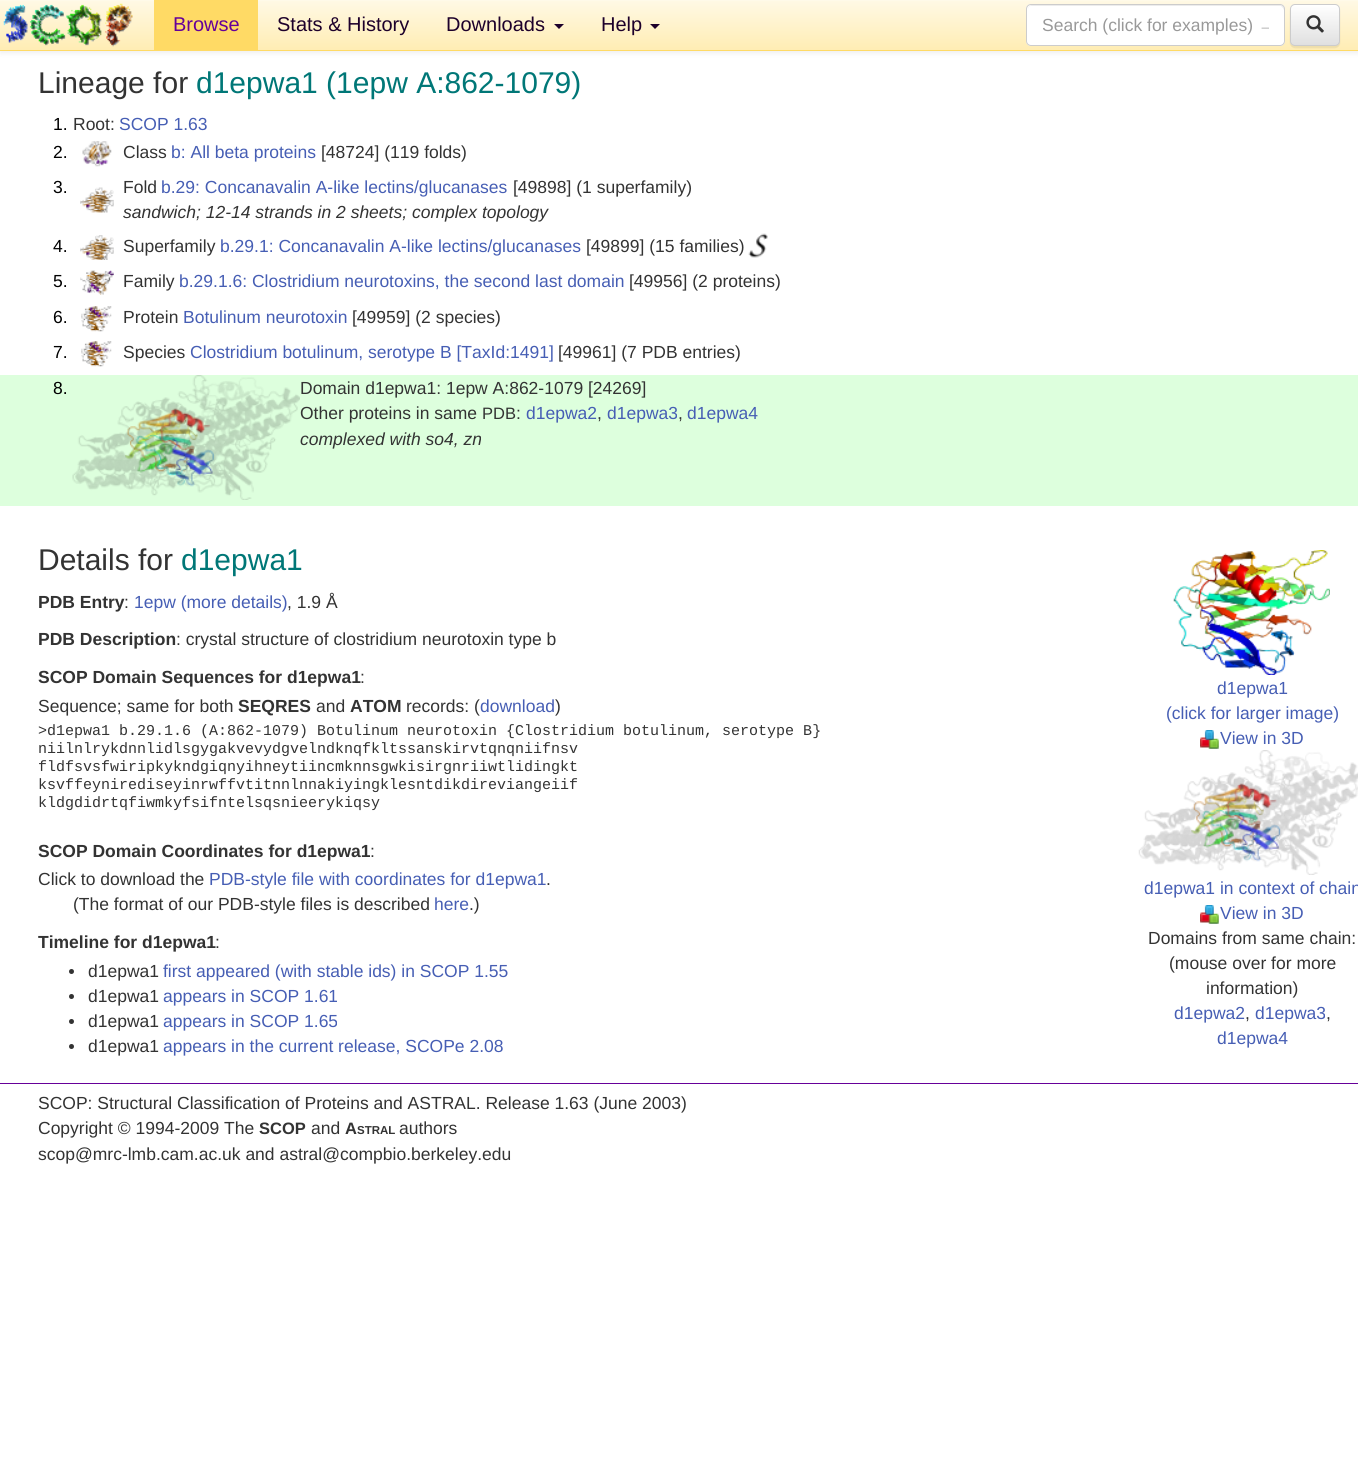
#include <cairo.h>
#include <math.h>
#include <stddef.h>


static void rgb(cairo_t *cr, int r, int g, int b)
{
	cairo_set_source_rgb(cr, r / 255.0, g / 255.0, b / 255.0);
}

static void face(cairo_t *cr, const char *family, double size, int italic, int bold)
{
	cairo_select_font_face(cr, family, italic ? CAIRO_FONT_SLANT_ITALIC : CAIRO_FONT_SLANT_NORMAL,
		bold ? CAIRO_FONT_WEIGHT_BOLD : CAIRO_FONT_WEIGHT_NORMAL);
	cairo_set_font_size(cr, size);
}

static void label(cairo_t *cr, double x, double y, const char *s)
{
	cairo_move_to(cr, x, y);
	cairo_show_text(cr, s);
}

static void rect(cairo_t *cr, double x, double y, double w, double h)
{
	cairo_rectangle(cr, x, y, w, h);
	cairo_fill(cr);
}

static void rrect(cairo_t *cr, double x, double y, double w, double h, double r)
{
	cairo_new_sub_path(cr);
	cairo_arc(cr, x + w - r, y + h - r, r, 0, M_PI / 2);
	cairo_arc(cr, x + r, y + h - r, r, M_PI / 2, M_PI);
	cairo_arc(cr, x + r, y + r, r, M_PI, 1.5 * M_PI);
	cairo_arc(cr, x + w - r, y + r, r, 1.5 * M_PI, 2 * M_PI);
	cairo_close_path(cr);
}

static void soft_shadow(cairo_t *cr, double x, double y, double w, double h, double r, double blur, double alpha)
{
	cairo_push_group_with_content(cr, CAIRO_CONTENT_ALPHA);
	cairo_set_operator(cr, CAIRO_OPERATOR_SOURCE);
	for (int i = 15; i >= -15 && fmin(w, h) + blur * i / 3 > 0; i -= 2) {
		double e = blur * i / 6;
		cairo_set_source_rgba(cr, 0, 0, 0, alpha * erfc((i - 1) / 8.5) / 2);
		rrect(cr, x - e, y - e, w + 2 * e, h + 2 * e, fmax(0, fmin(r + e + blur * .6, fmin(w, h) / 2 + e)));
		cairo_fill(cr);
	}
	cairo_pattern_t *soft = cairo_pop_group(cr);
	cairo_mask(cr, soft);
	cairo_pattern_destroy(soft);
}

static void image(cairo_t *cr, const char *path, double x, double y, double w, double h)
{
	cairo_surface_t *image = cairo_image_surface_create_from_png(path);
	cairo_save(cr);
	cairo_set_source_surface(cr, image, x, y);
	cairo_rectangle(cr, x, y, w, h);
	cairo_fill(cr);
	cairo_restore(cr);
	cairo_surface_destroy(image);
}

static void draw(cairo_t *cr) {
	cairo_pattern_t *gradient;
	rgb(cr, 255, 255, 255);
	cairo_paint(cr);
	rgb(cr, 0, 0, 0);
	soft_shadow(cr, 0, 1, 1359, 52, 0, 3, 0.07);
	gradient = cairo_pattern_create_linear(679, 0, 679, 50);
	cairo_pattern_add_color_stop_rgba(gradient, 0, 1, 0.976, 0.902, 1);
	cairo_pattern_add_color_stop_rgba(gradient, 1, 1, 0.929, 0.702, 1);
	cairo_set_source(cr, gradient);
	cairo_pattern_destroy(gradient);
	rect(cr, 0, 1, 1358, 49);
	rgb(cr, 255, 250, 233);
	rect(cr, 0, 0, 1358, 1);
	rgb(cr, 255, 218, 101);
	rect(cr, 0, 50, 1358, 1);
	image(cr, "image0.png", 3, 3, 130, 44);
	rect(cr, 154, 0, 104, 50);
	face(cr, "Liberation Sans", 20, 0, 0);
	rgb(cr, 102, 0, 153);
	label(cr, 173, 31, "Browse");
	rgb(cr, 29, 0, 43);
	label(cr, 277, 31, "Stats & History");
	label(cr, 446, 31, "Downloads");
	cairo_new_path(cr);
	cairo_move_to(cr, 554, 24);
	cairo_line_to(cr, 564, 24);
	cairo_line_to(cr, 559, 29);
	cairo_close_path(cr);
	cairo_fill(cr);
	label(cr, 601, 31, "Help");
	cairo_new_path(cr);
	cairo_move_to(cr, 650, 24);
	cairo_line_to(cr, 660, 24);
	cairo_line_to(cr, 655, 29);
	cairo_close_path(cr);
	cairo_fill(cr);
	rgb(cr, 255, 255, 255);
	rrect(cr, 1026, 4, 259, 42, 5);
	cairo_fill(cr);
	rgb(cr, 236, 236, 236);
	cairo_new_path(cr);
	cairo_move_to(cr, 1031, 6);
	cairo_line_to(cr, 1281, 6);
	cairo_line_to(cr, 1283, 8);
	cairo_line_to(cr, 1284, 10);
	cairo_line_to(cr, 1284, 9);
	cairo_curve_to(cr, 1284, 7, 1282, 5, 1280, 5);
	cairo_line_to(cr, 1032, 5);
	cairo_curve_to(cr, 1030, 5, 1028, 7, 1028, 9);
	cairo_line_to(cr, 1028, 10);
	cairo_curve_to(cr, 1028, 8, 1029, 6, 1031, 6);
	cairo_close_path(cr);
	cairo_fill(cr);
	rrect(cr, 1026.5, 4.5, 258, 41, 4.5);
	rgb(cr, 204, 204, 204);
	cairo_set_line_width(cr, 1);
	cairo_stroke(cr);
	cairo_save(cr);
	cairo_rectangle(cr, 1043, 15, 226, 20);
	cairo_clip(cr);
	face(cr, "Liberation Sans", 17.5, 0, 0);
	rgb(cr, 153, 153, 153);
	label(cr, 1042, 31, "Search (click for examples) →");
	cairo_restore(cr);
	rgb(cr, 0, 0, 0);
	soft_shadow(cr, 1290, 5, 50, 43, 5, 0.5, 0.07);
	cairo_save(cr);
	rrect(cr, 1290, 4, 50, 42, 5);
	cairo_clip(cr);
	gradient = cairo_pattern_create_linear(1315, 5, 1315, 45);
	cairo_pattern_add_color_stop_rgba(gradient, 0, 1, 1, 1, 1);
	cairo_pattern_add_color_stop_rgba(gradient, 1, 0.878, 0.878, 0.878, 1);
	cairo_set_source(cr, gradient);
	cairo_pattern_destroy(gradient);
	rect(cr, 1290, 5, 50, 40);
	cairo_restore(cr);
	rrect(cr, 1290.5, 4.5, 49, 41, 4.5);
	rgb(cr, 204, 204, 204);
	cairo_stroke(cr);
	image(cr, "image1.png", 1306, 15, 18, 18);
	face(cr, "Liberation Sans", 30, 0, 0);
	rgb(cr, 51, 51, 51);
	label(cr, 38, 93, "Lineage for");
	rgb(cr, 0, 119, 119);
	label(cr, 196, 93, "d1epwa1 (1epw A:862-1079)");
	face(cr, "Liberation Sans", 17.5, 0, 0);
	rgb(cr, 0, 0, 0);
	label(cr, 53, 130, "1.");
	rgb(cr, 51, 51, 51);
	label(cr, 73, 130, "Root:");
	rgb(cr, 70, 94, 180);
	label(cr, 119, 130, "SCOP 1.63");
	rgb(cr, 0, 0, 0);
	label(cr, 53, 158, "2.");
	image(cr, "image2.png", 82, 141, 30, 26);
	rgb(cr, 51, 51, 51);
	label(cr, 123, 158, "Class");
	rgb(cr, 70, 94, 180);
	label(cr, 171, 158, "b: All beta proteins");
	rgb(cr, 51, 51, 51);
	label(cr, 321, 158, "[48724] (119 folds)");
	rgb(cr, 0, 0, 0);
	label(cr, 53, 193, "3.");
	image(cr, "image3.png", 80, 187, 34, 26);
	rgb(cr, 51, 51, 51);
	label(cr, 123, 193, "Fold");
	rgb(cr, 70, 94, 180);
	label(cr, 161, 193, "b.29: Concanavalin A-like lectins/glucanases");
	rgb(cr, 51, 51, 51);
	label(cr, 513, 193, "[49898] (1 superfamily)");
	face(cr, "Liberation Sans", 17.5, 1, 0);
	label(cr, 123, 218, "sandwich; 12-14 strands in 2 sheets; complex topology");
	face(cr, "Liberation Sans", 17.5, 0, 0);
	rgb(cr, 0, 0, 0);
	label(cr, 53, 252, "4.");
	image(cr, "image4.png", 80, 235, 34, 25);
	rgb(cr, 51, 51, 51);
	label(cr, 123, 252, "Superfamily");
	rgb(cr, 70, 94, 180);
	label(cr, 220, 252, "b.29.1: Concanavalin A-like lectins/glucanases");
	rgb(cr, 51, 51, 51);
	label(cr, 586, 252, "[49899] (15 families)");
	image(cr, "image5.png", 748, 233, 20, 25);
	rgb(cr, 0, 0, 0);
	label(cr, 53, 287, "5.");
	image(cr, "image6.png", 80, 270, 34, 25);
	rgb(cr, 51, 51, 51);
	label(cr, 123, 287, "Family");
	rgb(cr, 70, 94, 180);
	label(cr, 179, 287, "b.29.1.6: Clostridium neurotoxins, the second last domain");
	rgb(cr, 51, 51, 51);
	label(cr, 629, 287, "[49956] (2 proteins)");
	rgb(cr, 0, 0, 0);
	label(cr, 53, 323, "6.");
	image(cr, "image7.png", 81, 306, 31, 26);
	rgb(cr, 51, 51, 51);
	label(cr, 123, 323, "Protein");
	rgb(cr, 70, 94, 180);
	label(cr, 183, 323, "Botulinum neurotoxin");
	rgb(cr, 51, 51, 51);
	label(cr, 352, 323, "[49959] (2 species)");
	rgb(cr, 0, 0, 0);
	label(cr, 53, 358, "7.");
	image(cr, "image7.png", 81, 341, 31, 26);
	rgb(cr, 51, 51, 51);
	label(cr, 123, 358, "Species");
	rgb(cr, 70, 94, 180);
	label(cr, 190, 358, "Clostridium botulinum, serotype B [TaxId:1491]");
	rgb(cr, 51, 51, 51);
	label(cr, 558, 358, "[49961] (7 PDB entries)");
	rgb(cr, 221, 255, 221);
	rect(cr, 0, 375, 1358, 131);
	rgb(cr, 0, 0, 0);
	label(cr, 53, 394, "8.");
	image(cr, "image8.png", 72, 375, 228, 125);
	rgb(cr, 51, 51, 51);
	label(cr, 300, 394, "Domain d1epwa1: 1epw A:862-1079 [24269]");
	label(cr, 300, 419, "Other proteins in same");
	face(cr, "Liberation Sans", 16.5, 0, 0);
	label(cr, 482, 419, "PDB");
	face(cr, "Liberation Sans", 17.5, 0, 0);
	label(cr, 516, 419, ":");
	rgb(cr, 70, 94, 180);
	label(cr, 526, 419, "d1epwa2");
	label(cr, 607, 419, "d1epwa3");
	label(cr, 687, 419, "d1epwa4");
	rgb(cr, 51, 51, 51);
	label(cr, 597, 419, ",");
	label(cr, 678, 419, ",");
	face(cr, "Liberation Sans", 17.5, 1, 0);
	label(cr, 300, 445, "complexed with so4, zn");
	face(cr, "Liberation Sans", 30, 0, 0);
	label(cr, 38, 570, "Details for");
	rgb(cr, 0, 119, 119);
	label(cr, 181, 570, "d1epwa1");
	face(cr, "Liberation Sans", 17.5, 0, 1);
	rgb(cr, 51, 51, 51);
	label(cr, 38, 608, "PDB Entry");
	face(cr, "Liberation Sans", 17.5, 0, 0);
	label(cr, 124, 608, ":");
	rgb(cr, 70, 94, 180);
	label(cr, 134, 608, "1epw (more details)");
	rgb(cr, 51, 51, 51);
	label(cr, 287, 608, ", 1.9 Å");
	face(cr, "Liberation Sans", 17.5, 0, 1);
	label(cr, 38, 645, "PDB Description");
	face(cr, "Liberation Sans", 17.5, 0, 0);
	label(cr, 176, 645, ": crystal structure of clostridium neurotoxin type b");
	face(cr, "Liberation Sans", 17.5, 0, 1);
	label(cr, 38, 683, "SCOP Domain Sequences for d1epwa1");
	face(cr, "Liberation Sans", 17.5, 0, 0);
	label(cr, 360, 683, ":");
	label(cr, 38, 712, "Sequence; same for both");
	face(cr, "Liberation Sans", 17.5, 0, 1);
	label(cr, 238, 712, "SEQRES");
	face(cr, "Liberation Sans", 17.5, 0, 0);
	label(cr, 316, 712, "and");
	face(cr, "Liberation Sans", 17.5, 0, 1);
	label(cr, 350, 712, "ATOM");
	face(cr, "Liberation Sans", 17.5, 0, 0);
	label(cr, 406, 712, "records: (");
	rgb(cr, 70, 94, 180);
	label(cr, 480, 712, "download");
	rgb(cr, 51, 51, 51);
	label(cr, 555, 712, ")");
	face(cr, "Liberation Mono", 15, 0, 0);
	label(cr, 38, 735, ">d1epwa1 b.29.1.6 (A:862-1079) Botulinum neurotoxin {Clostridium botulinum, serotype B}");
	label(cr, 38, 753, "niilnlrykdnnlidlsgygakvevydgvelndknqfkltssanskirvtqnqniifnsv");
	label(cr, 38, 771, "fldfsvsfwiripkykndgiqnyihneytiincmknnsgwkisirgnriiwtlidingkt");
	label(cr, 38, 789, "ksvffeynirediseyinrwffvtitnnlnnakiyingklesntdikdireviangeiif");
	label(cr, 38, 807, "kldgdidrtqfiwmkyfsifntelsqsnieerykiqsy");
	face(cr, "Liberation Sans", 17.5, 0, 1);
	label(cr, 38, 857, "SCOP Domain Coordinates for d1epwa1");
	face(cr, "Liberation Sans", 17.5, 0, 0);
	label(cr, 370, 857, ":");
	label(cr, 38, 885, "Click to download the");
	rgb(cr, 70, 94, 180);
	label(cr, 209, 885, "PDB-style file with coordinates for d1epwa1");
	rgb(cr, 51, 51, 51);
	label(cr, 546, 885, ".");
	label(cr, 73, 910, "(The format of our PDB-style files is described");
	rgb(cr, 70, 94, 180);
	label(cr, 434, 910, "here");
	rgb(cr, 51, 51, 51);
	label(cr, 469, 910, ".)");
	face(cr, "Liberation Sans", 17.5, 0, 1);
	label(cr, 38, 948, "Timeline for d1epwa1");
	face(cr, "Liberation Sans", 17.5, 0, 0);
	label(cr, 215, 948, ":");
	cairo_new_path(cr);
	cairo_arc(cr, 71.5, 971.5, 2.5, 0, 2 * M_PI);
	cairo_fill(cr);
	label(cr, 88, 977, "d1epwa1");
	rgb(cr, 70, 94, 180);
	label(cr, 163, 977, "first appeared (with stable ids) in SCOP 1.55");
	rgb(cr, 51, 51, 51);
	cairo_new_path(cr);
	cairo_arc(cr, 71.5, 996.5, 2.5, 0, 2 * M_PI);
	cairo_fill(cr);
	label(cr, 88, 1002, "d1epwa1");
	rgb(cr, 70, 94, 180);
	label(cr, 163, 1002, "appears in SCOP 1.61");
	rgb(cr, 51, 51, 51);
	cairo_new_path(cr);
	cairo_arc(cr, 71.5, 1021.5, 2.5, 0, 2 * M_PI);
	cairo_fill(cr);
	label(cr, 88, 1027, "d1epwa1");
	rgb(cr, 70, 94, 180);
	label(cr, 163, 1027, "appears in SCOP 1.65");
	rgb(cr, 51, 51, 51);
	cairo_new_path(cr);
	cairo_arc(cr, 71.5, 1046.5, 2.5, 0, 2 * M_PI);
	cairo_fill(cr);
	label(cr, 88, 1052, "d1epwa1");
	rgb(cr, 70, 94, 180);
	label(cr, 163, 1052, "appears in the current release, SCOPe 2.08");
	image(cr, "image9.png", 1173, 550, 157, 125);
	label(cr, 1217, 694, "d1epwa1");
	label(cr, 1166, 719, "(click for larger image)");
	image(cr, "image10.png", 1200, 730, 19, 19);
	label(cr, 1220, 744, "View in 3D");
	image(cr, "image11.png", 1138, 750, 220, 125);
	label(cr, 1144, 894, "d1epwa1 in context of chain");
	image(cr, "image10.png", 1200, 905, 19, 19);
	label(cr, 1220, 919, "View in 3D");
	rgb(cr, 51, 51, 51);
	label(cr, 1148, 944, "Domains from same chain:");
	label(cr, 1169, 969, "(mouse over for more");
	label(cr, 1206, 994, "information)");
	rgb(cr, 70, 94, 180);
	label(cr, 1174, 1019, "d1epwa2");
	rgb(cr, 51, 51, 51);
	label(cr, 1245, 1019, ",");
	rgb(cr, 70, 94, 180);
	label(cr, 1255, 1019, "d1epwa3");
	rgb(cr, 51, 51, 51);
	label(cr, 1326, 1019, ",");
	rgb(cr, 70, 94, 180);
	label(cr, 1217, 1044, "d1epwa4");
	rgb(cr, 102, 0, 153);
	rect(cr, 0, 1083, 1358, 1);
	rgb(cr, 51, 51, 51);
	label(cr, 38, 1109, "SCOP: Structural Classification of Proteins and ASTRAL. Release 1.63 (June 2003)");
	label(cr, 38, 1134, "Copyright © 1994-2009 The");
	face(cr, "Liberation Sans", 16.5, 0, 1);
	label(cr, 259, 1134, "SCOP");
	face(cr, "Liberation Sans", 17.5, 0, 0);
	label(cr, 311, 1134, "and");
	face(cr, "Liberation Sans", 16.5, 0, 1);
	label(cr, 345, 1134, "A");
	face(cr, "Liberation Sans", 11.5, 0, 1);
	label(cr, 357, 1134, "STRAL");
	face(cr, "Liberation Sans", 17.5, 0, 0);
	label(cr, 399, 1134, "authors");
	label(cr, 38, 1160, "scop@mrc-lmb.cam.ac.uk and astral@compbio.berkeley.edu");
}

int main(void) {
	cairo_surface_t *surface = cairo_image_surface_create(CAIRO_FORMAT_RGB24, 1358, 1481);
	cairo_t *cr = cairo_create(surface);
	cairo_font_options_t *options = cairo_font_options_create();
	cairo_font_options_set_hint_metrics(options, CAIRO_HINT_METRICS_OFF);
	cairo_font_options_set_hint_style(options, CAIRO_HINT_STYLE_NONE);
	cairo_set_font_options(cr, options);
	cairo_set_miter_limit(cr, 4);
	draw(cr);
	cairo_surface_write_to_png(surface, "render.png");
	cairo_font_options_destroy(options);
	cairo_destroy(cr);
	cairo_surface_destroy(surface);
	return 0;
}
